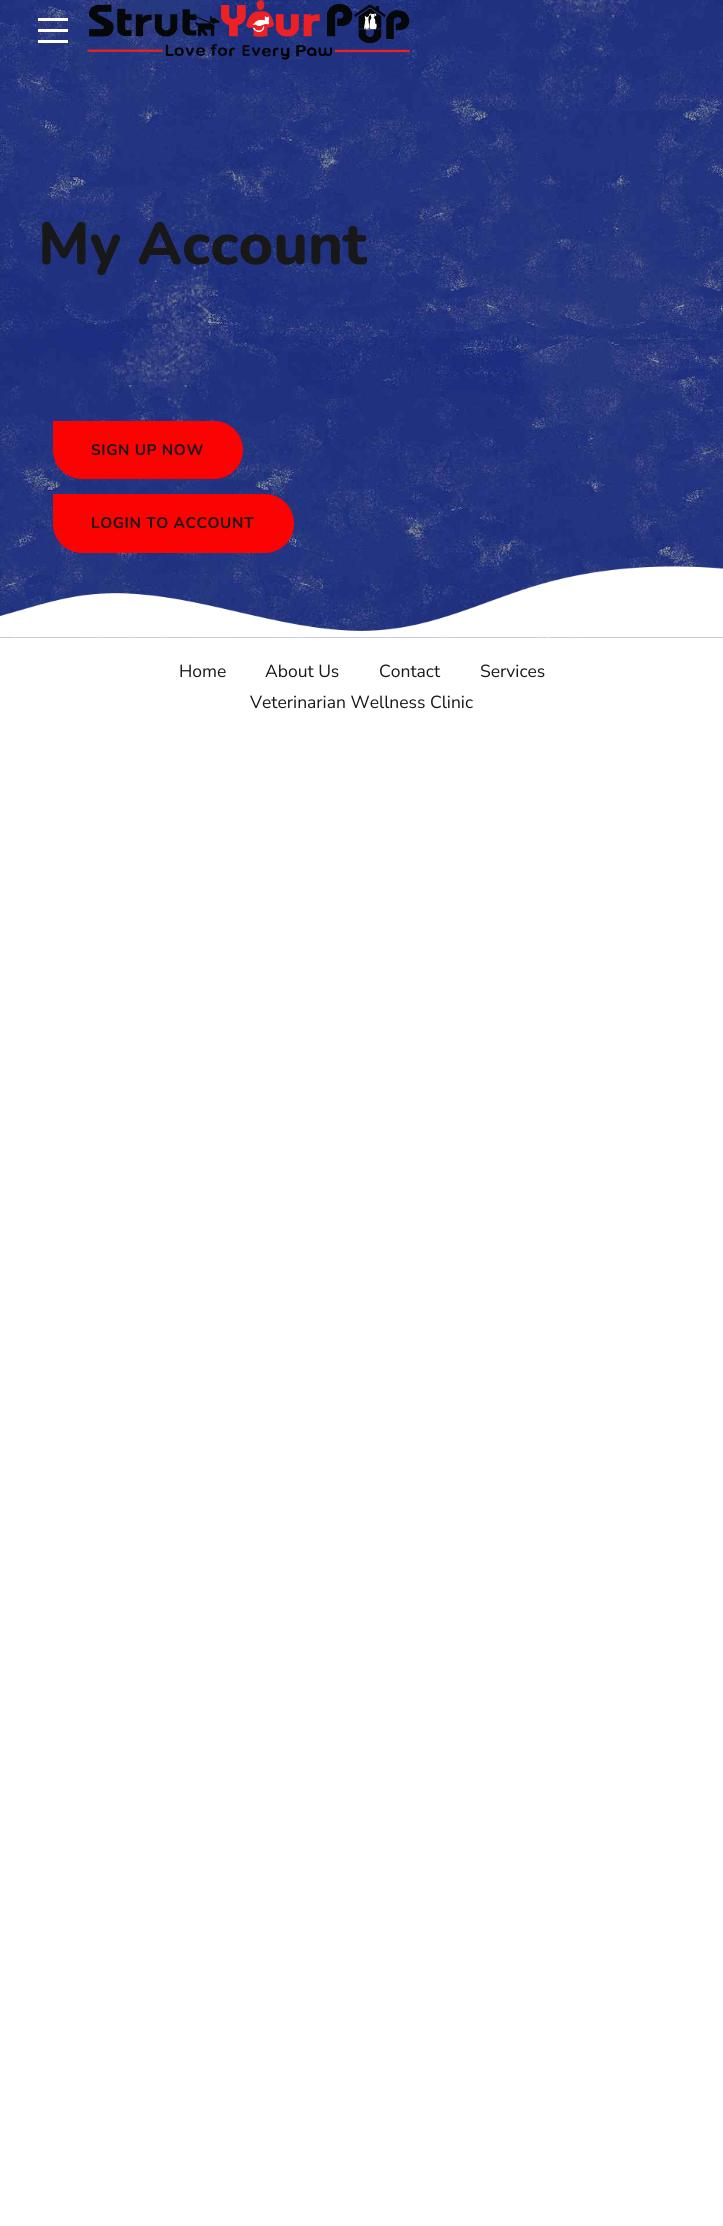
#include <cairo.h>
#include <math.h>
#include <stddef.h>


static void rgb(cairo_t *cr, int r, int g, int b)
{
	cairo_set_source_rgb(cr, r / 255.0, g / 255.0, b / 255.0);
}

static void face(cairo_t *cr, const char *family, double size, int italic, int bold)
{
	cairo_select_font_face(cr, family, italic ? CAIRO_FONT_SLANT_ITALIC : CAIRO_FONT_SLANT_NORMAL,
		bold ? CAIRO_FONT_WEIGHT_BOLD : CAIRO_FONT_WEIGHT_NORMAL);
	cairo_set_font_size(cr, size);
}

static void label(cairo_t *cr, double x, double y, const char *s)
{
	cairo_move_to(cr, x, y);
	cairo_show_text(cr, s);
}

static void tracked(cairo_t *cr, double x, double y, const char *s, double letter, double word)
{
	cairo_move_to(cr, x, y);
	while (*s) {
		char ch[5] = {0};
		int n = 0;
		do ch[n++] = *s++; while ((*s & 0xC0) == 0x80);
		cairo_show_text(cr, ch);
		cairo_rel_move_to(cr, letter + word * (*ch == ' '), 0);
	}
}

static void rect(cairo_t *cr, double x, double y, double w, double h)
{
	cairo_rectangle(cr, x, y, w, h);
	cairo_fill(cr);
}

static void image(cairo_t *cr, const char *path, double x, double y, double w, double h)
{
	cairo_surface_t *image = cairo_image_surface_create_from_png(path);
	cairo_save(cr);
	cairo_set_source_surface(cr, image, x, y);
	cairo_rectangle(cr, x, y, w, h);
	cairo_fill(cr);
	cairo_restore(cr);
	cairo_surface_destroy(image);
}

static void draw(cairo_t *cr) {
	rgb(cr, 255, 255, 255);
	cairo_paint(cr);
	image(cr, "image1.png", 0, 0, 723, 638);
	rgb(cr, 255, 255, 255);
	rect(cr, 38, 18, 30, 3);
	rect(cr, 38, 29, 30, 3);
	rect(cr, 38, 40, 30, 3);
	image(cr, "image0.png", 87, 0, 323, 60);
	face(cr, "Nunito ExtraBold", 59, 0, 0);
	rgb(cr, 24, 24, 24);
	label(cr, 38, 264, "My Account");
	rgb(cr, 251, 2, 3);
	cairo_new_path(cr);
	cairo_move_to(cr, 53, 421);
	cairo_line_to(cr, 214, 421);
	cairo_curve_to(cr, 230, 421, 243, 434, 243, 450);
	cairo_curve_to(cr, 243, 466, 230, 479, 214, 479);
	cairo_line_to(cr, 82, 479);
	cairo_curve_to(cr, 66, 479, 53, 466, 53, 450);
	cairo_close_path(cr);
	cairo_fill(cr);
	face(cr, "Nunito", 15.25, 0, 1);
	rgb(cr, 24, 24, 24);
	tracked(cr, 91, 455, "SIGN UP NOW", 0.6, 0);
	rgb(cr, 251, 2, 3);
	cairo_new_path(cr);
	cairo_move_to(cr, 53, 494);
	cairo_line_to(cr, 264.5, 494);
	cairo_curve_to(cr, 281, 494, 294, 507, 294, 523.5);
	cairo_curve_to(cr, 294, 540, 281, 553, 264.5, 553);
	cairo_line_to(cr, 82.5, 553);
	cairo_curve_to(cr, 66, 553, 53, 540, 53, 523.5);
	cairo_close_path(cr);
	cairo_fill(cr);
	rgb(cr, 24, 24, 24);
	tracked(cr, 91, 528, "LOGIN TO ACCOUNT", 0.6, 0);
	image(cr, "image2.png", 0, 566, 723, 72);
	face(cr, "Nunito Sans", 17.5, 0, 0);
	label(cr, 179, 677, "Home");
	label(cr, 265, 677, "About Us");
	label(cr, 379, 677, "Contact");
	label(cr, 480, 677, "Services");
	label(cr, 250, 708, "Veterinarian Wellness Clinic");
}

int main(void) {
	cairo_surface_t *surface = cairo_image_surface_create(CAIRO_FORMAT_RGB24, 723, 2226);
	cairo_t *cr = cairo_create(surface);
	cairo_font_options_t *options = cairo_font_options_create();
	cairo_font_options_set_hint_metrics(options, CAIRO_HINT_METRICS_OFF);
	cairo_font_options_set_hint_style(options, CAIRO_HINT_STYLE_NONE);
	cairo_set_font_options(cr, options);
	cairo_set_miter_limit(cr, 4);
	draw(cr);
	cairo_surface_write_to_png(surface, "render.png");
	cairo_font_options_destroy(options);
	cairo_destroy(cr);
	cairo_surface_destroy(surface);
	return 0;
}
